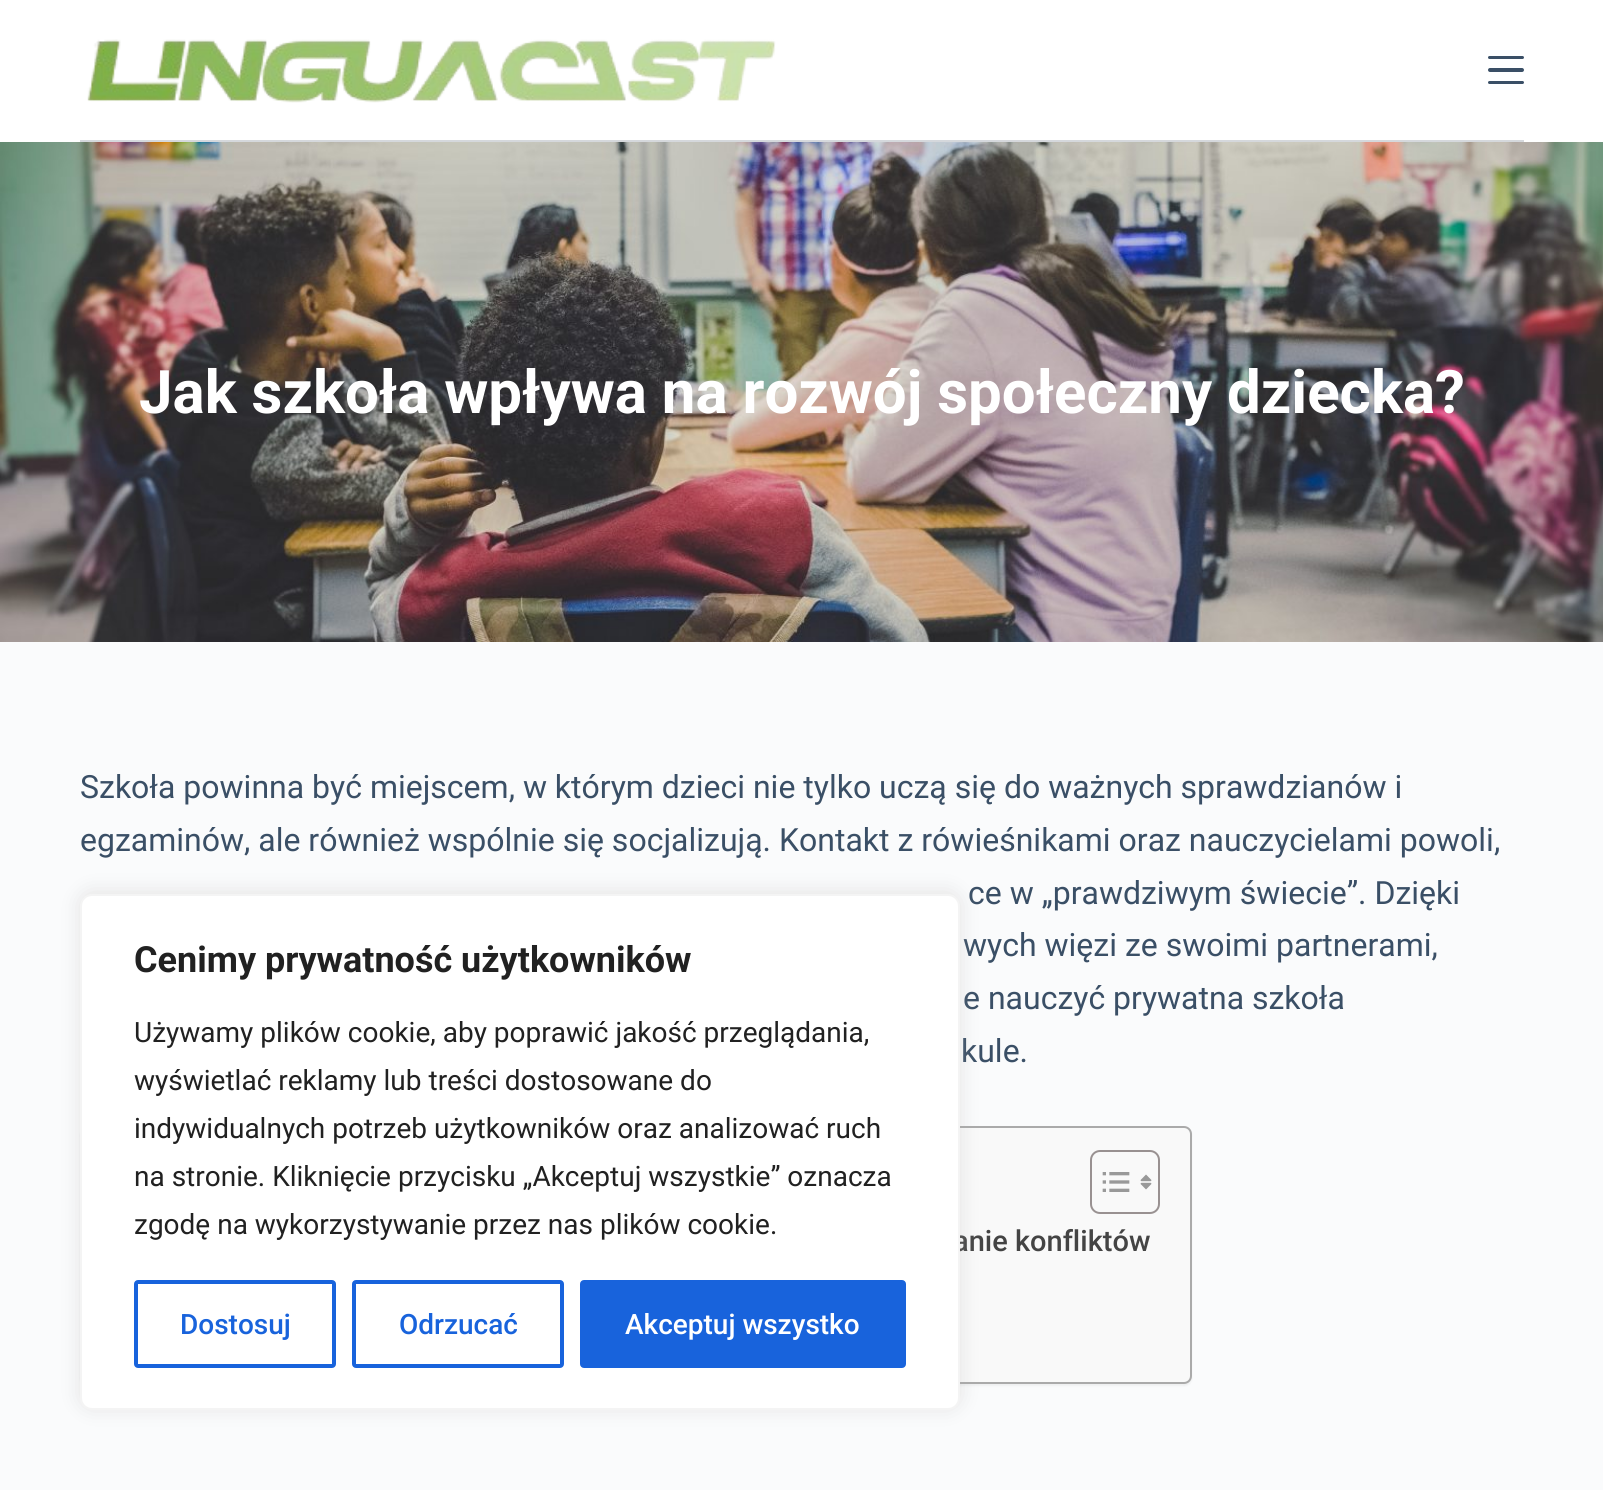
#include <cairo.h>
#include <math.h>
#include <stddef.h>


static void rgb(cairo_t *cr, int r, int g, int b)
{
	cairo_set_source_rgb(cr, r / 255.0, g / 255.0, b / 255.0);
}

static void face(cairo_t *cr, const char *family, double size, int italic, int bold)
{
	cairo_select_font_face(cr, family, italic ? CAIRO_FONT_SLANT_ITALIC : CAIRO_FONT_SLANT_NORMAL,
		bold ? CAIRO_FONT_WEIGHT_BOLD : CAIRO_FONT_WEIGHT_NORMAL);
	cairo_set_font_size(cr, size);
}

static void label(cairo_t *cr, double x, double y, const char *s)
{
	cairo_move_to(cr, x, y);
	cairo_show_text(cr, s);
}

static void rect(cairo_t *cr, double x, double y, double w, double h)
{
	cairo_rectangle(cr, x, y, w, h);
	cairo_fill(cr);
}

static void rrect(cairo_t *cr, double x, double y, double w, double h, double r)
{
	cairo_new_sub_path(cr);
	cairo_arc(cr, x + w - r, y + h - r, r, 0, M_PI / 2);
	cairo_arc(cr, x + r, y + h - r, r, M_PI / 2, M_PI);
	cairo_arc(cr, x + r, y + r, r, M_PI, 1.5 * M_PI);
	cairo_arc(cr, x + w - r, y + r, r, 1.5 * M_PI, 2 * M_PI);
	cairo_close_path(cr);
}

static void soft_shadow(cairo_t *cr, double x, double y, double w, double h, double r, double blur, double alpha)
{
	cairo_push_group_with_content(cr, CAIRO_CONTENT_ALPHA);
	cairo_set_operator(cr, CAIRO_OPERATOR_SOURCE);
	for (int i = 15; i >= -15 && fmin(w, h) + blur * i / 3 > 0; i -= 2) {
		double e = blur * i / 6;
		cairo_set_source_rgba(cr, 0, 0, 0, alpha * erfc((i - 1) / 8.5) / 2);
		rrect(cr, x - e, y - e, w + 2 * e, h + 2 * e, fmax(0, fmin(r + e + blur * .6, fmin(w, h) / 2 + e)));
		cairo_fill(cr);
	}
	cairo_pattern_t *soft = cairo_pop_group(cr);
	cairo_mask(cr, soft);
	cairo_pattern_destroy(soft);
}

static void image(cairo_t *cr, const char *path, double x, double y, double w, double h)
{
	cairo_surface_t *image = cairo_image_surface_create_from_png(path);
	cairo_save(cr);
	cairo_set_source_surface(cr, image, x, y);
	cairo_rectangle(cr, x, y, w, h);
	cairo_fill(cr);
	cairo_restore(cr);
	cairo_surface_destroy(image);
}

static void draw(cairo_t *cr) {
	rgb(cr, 250, 251, 252);
	cairo_paint(cr);
	rgb(cr, 255, 255, 255);
	rect(cr, 0, 0, 1603, 142);
	rgb(cr, 213, 216, 220);
	rect(cr, 80, 140, 1444, 2);
	image(cr, "image0.png", 87, 39, 689, 64);
	rgb(cr, 58, 79, 102);
	rrect(cr, 1488, 56, 36, 3, 1.5);
	cairo_fill(cr);
	rrect(cr, 1488, 68, 36, 4, 2);
	cairo_fill(cr);
	rrect(cr, 1488, 81, 36, 3, 1.5);
	cairo_fill(cr);
	image(cr, "image1.png", 0, 142, 1603, 500);
	face(cr, "Roboto", 60, 0, 1);
	rgb(cr, 255, 255, 255);
	label(cr, 139, 413, "Jak szkoła wpływa na rozwój społeczny dziecka?");
	face(cr, "Roboto", 32, 0, 0);
	rgb(cr, 58, 79, 102);
	label(cr, 80, 798, "Szkoła powinna być miejscem, w którym dzieci nie tylko uczą się do ważnych sprawdzianów i");
	label(cr, 80, 851, "egzaminów, ale również wspólnie się socjalizują. Kontakt z rówieśnikami oraz nauczycielami powoli,");
	label(cr, 968, 904, "ce w „prawdziwym świecie”. Dzięki");
	label(cr, 963, 956, "wych więzi ze swoimi partnerami,");
	label(cr, 963, 1009, "e nauczyć prywatna szkoła");
	label(cr, 961, 1062, "kule.");
	rgb(cr, 0, 0, 0);
	soft_shadow(cr, 80, 1128, 1112, 258, 8, 1, 0.05);
	rgb(cr, 249, 249, 249);
	rrect(cr, 81, 1127, 1110, 256, 7);
	cairo_fill_preserve(cr);
	rgb(cr, 170, 170, 170);
	cairo_stroke(cr);
	rrect(cr, 1091, 1151, 68, 62, 9);
	rgb(cr, 153, 145, 145);
	cairo_stroke(cr);
	image(cr, "image2.png", 1102, 1172, 28, 20);
	image(cr, "image3.png", 1140, 1174, 12, 16);
	face(cr, "Roboto Medium", 29, 0, 0);
	rgb(cr, 68, 68, 68);
	label(cr, 953, 1251, "anie konfliktów");
	rgb(cr, 172, 171, 171);
	soft_shadow(cr, 80, 892, 880, 516, 12, 10, 0.3);
	rgb(cr, 255, 255, 255);
	rrect(cr, 81, 895, 878, 514, 11);
	cairo_fill_preserve(cr);
	rgb(cr, 244, 244, 244);
	cairo_stroke(cr);
	face(cr, "Roboto", 36, 0, 1);
	rgb(cr, 33, 33, 33);
	label(cr, 134, 972, "Cenimy prywatność użytkowników");
	face(cr, "Roboto", 28, 0, 0);
	label(cr, 134, 1042, "Używamy plików cookie, aby poprawić jakość przeglądania,");
	label(cr, 134, 1090, "wyświetlać reklamy lub treści dostosowane do");
	label(cr, 134, 1138, "indywidualnych potrzeb użytkowników oraz analizować ruch");
	label(cr, 134, 1186, "na stronie. Kliknięcie przycisku „Akceptuj wszystkie” oznacza");
	label(cr, 134, 1234, "zgodę na wykorzystywanie przez nas plików cookie.");
	rrect(cr, 136, 1282, 198, 84, 2);
	rgb(cr, 24, 99, 220);
	cairo_set_line_width(cr, 4);
	cairo_stroke(cr);
	face(cr, "Roboto Medium", 28, 0, 0);
	label(cr, 180, 1334, "Dostosuj");
	rrect(cr, 354, 1282, 208, 84, 2);
	cairo_stroke(cr);
	label(cr, 399, 1334, "Odrzucać");
	rrect(cr, 582, 1282, 322, 84, 2);
	cairo_fill_preserve(cr);
	cairo_stroke(cr);
	rgb(cr, 255, 255, 255);
	label(cr, 625, 1334, "Akceptuj wszystko");
}

int main(void) {
	cairo_surface_t *surface = cairo_image_surface_create(CAIRO_FORMAT_RGB24, 1603, 1490);
	cairo_t *cr = cairo_create(surface);
	cairo_font_options_t *options = cairo_font_options_create();
	cairo_font_options_set_hint_metrics(options, CAIRO_HINT_METRICS_OFF);
	cairo_font_options_set_hint_style(options, CAIRO_HINT_STYLE_NONE);
	cairo_set_font_options(cr, options);
	cairo_set_miter_limit(cr, 4);
	draw(cr);
	cairo_surface_write_to_png(surface, "render.png");
	cairo_font_options_destroy(options);
	cairo_destroy(cr);
	cairo_surface_destroy(surface);
	return 0;
}
